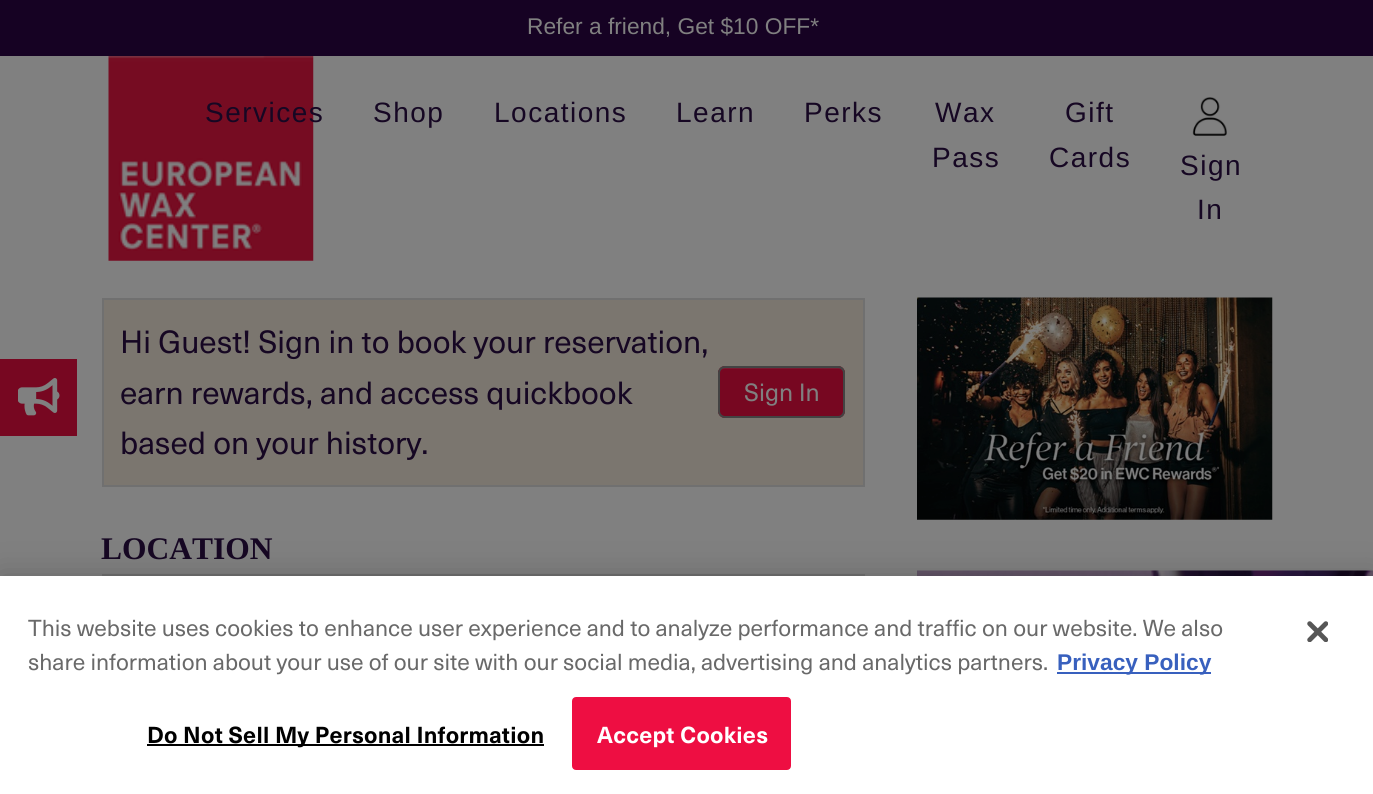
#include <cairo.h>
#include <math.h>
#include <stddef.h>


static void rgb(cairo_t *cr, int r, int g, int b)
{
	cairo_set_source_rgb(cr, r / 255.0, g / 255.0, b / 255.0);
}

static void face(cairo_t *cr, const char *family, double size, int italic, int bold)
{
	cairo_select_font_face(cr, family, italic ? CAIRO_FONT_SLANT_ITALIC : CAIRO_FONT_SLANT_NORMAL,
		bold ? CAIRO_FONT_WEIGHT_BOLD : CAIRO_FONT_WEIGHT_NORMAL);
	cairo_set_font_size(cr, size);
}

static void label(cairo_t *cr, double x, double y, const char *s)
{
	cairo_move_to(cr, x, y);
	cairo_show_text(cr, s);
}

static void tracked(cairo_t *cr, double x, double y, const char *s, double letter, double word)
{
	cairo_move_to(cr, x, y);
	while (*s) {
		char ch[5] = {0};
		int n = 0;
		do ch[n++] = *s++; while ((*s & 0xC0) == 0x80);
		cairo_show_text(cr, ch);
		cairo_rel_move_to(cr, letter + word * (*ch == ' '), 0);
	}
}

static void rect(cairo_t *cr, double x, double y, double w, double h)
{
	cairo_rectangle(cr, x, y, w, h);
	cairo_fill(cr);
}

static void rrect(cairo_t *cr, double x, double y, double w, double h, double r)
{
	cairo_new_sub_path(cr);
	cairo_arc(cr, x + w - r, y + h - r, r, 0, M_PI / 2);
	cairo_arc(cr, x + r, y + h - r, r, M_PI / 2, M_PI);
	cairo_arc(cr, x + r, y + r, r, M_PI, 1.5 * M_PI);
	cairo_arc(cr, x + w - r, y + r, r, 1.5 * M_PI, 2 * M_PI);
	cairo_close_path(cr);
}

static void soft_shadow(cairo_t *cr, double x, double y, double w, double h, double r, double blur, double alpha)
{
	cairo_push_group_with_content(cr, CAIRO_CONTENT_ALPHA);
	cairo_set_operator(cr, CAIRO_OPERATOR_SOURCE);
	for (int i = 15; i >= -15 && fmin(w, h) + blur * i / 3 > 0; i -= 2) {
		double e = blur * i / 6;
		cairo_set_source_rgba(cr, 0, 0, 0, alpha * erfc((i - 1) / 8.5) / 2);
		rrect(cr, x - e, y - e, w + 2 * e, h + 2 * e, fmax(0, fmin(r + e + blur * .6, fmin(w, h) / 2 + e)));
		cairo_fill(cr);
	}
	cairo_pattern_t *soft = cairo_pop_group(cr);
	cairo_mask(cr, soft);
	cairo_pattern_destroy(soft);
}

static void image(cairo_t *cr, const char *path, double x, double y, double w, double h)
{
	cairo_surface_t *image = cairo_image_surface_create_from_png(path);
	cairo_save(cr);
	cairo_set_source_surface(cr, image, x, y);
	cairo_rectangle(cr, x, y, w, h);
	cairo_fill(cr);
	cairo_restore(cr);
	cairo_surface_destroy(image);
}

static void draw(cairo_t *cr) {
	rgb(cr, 128, 128, 128);
	cairo_paint(cr);
	rgb(cr, 119, 7, 33);
	rect(cr, 0, 359, 77, 77);
	image(cr, "image0.png", 18, 378, 42, 38);
	rgb(cr, 22, 2, 35);
	rect(cr, 0, 0, 1373, 56);
	face(cr, "Liberation Sans", 22.75, 0, 0);
	rgb(cr, 128, 128, 128);
	label(cr, 527, 34, "Refer a friend, Get $10 OFF*");
	image(cr, "image1.png", 108, 56, 206, 205);
	face(cr, "Liberation Sans", 28, 0, 0);
	rgb(cr, 22, 7, 35);
	tracked(cr, 205, 122, "Services", 1.5, 0);
	tracked(cr, 373, 122, "Shop", 1.5, 0);
	tracked(cr, 494, 122, "Locations", 1.5, 0);
	tracked(cr, 676, 122, "Learn", 1.5, 0);
	tracked(cr, 804, 122, "Perks", 1.5, 0);
	tracked(cr, 935, 122, "Wax", 1.5, 0);
	tracked(cr, 932, 167, "Pass", 1.5, 0);
	tracked(cr, 1065, 122, "Gift", 1.5, 0);
	tracked(cr, 1049, 167, "Cards", 1.5, 0);
	image(cr, "image2.png", 1192, 97, 35, 39);
	tracked(cr, 1180, 175, "Sign", 1.5, 0);
	tracked(cr, 1197, 219, "In", 1.5, 0);
	rgb(cr, 123, 118, 111);
	cairo_rectangle(cr, 103, 299, 761, 187);
	cairo_fill_preserve(cr);
	rgb(cr, 112, 112, 112);
	cairo_stroke(cr);
	face(cr, "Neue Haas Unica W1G", 31.5, 0, 0);
	rgb(cr, 22, 7, 35);
	label(cr, 120, 353, "Hi Guest! Sign in to book your reservation,");
	label(cr, 120, 404, "earn rewards, and access quickbook");
	label(cr, 120, 454, "based on your history.");
	rgb(cr, 119, 7, 33);
	rrect(cr, 718, 366, 127, 52, 7);
	cairo_fill(cr);
	rgb(cr, 121, 25, 47);
	cairo_new_path(cr);
	cairo_move_to(cr, 724, 369);
	cairo_line_to(cr, 839, 369);
	cairo_curve_to(cr, 842, 369, 844, 371, 844, 374);
	cairo_line_to(cr, 844, 372);
	cairo_curve_to(cr, 844, 370, 842, 368, 840, 368);
	cairo_line_to(cr, 723, 368);
	cairo_curve_to(cr, 721, 368, 719, 370, 719, 372);
	cairo_line_to(cr, 719, 374);
	cairo_curve_to(cr, 719, 371, 721, 369, 724, 369);
	cairo_close_path(cr);
	cairo_fill(cr);
	rrect(cr, 719, 367, 125, 50, 6);
	rgb(cr, 67, 67, 67);
	cairo_stroke(cr);
	face(cr, "Neue Haas Unica W1G", 24.5, 0, 0);
	rgb(cr, 128, 128, 128);
	label(cr, 744, 401, "Sign In");
	face(cr, "Liberation Serif", 31.5, 0, 1);
	rgb(cr, 22, 7, 35);
	label(cr, 101, 559, "LOCATION");
	cairo_rectangle(cr, 103, 575, 761, 77);
	rgb(cr, 112, 112, 112);
	cairo_stroke(cr);
	image(cr, "image3.png", 917, 297, 356, 223);
	image(cr, "image4.png", 917, 570, 456, 6);
	rgb(cr, 0, 0, 0);
	soft_shadow(cr, 0, 576, 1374, 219, 0, 16, 0.2);
	rgb(cr, 255, 255, 255);
	rect(cr, 0, 576, 1373, 218);
	face(cr, "Neue Haas Unica W1G", 22.75, 0, 0);
	rgb(cr, 105, 105, 105);
	label(cr, 28, 636, "This website uses cookies to enhance user experience and to analyze performance and traffic on our website. We also");
	label(cr, 28, 670, "share information about your use of our site with our social media, advertising and analytics partners.");
	rgb(cr, 56, 96, 190);
	rect(cr, 1057, 672, 154, 2);
	face(cr, "Liberation Sans", 22.75, 0, 1);
	label(cr, 1057, 670, "Privacy Policy");
	rgb(cr, 0, 0, 0);
	rect(cr, 147, 744, 397, 2);
	face(cr, "Neue Haas Unica W1G", 22.75, 0, 1);
	tracked(cr, 147, 743, "Do Not Sell My Personal Information", 0.25, 0);
	rgb(cr, 238, 14, 66);
	rrect(cr, 573, 698, 217, 71, 3);
	cairo_fill_preserve(cr);
	cairo_stroke(cr);
	rgb(cr, 255, 255, 255);
	tracked(cr, 597, 743, "Accept Cookies", 0.25, 0);
	image(cr, "image5.png", 1307, 621, 21, 21);
}

int main(void) {
	cairo_surface_t *surface = cairo_image_surface_create(CAIRO_FORMAT_RGB24, 1373, 794);
	cairo_t *cr = cairo_create(surface);
	cairo_font_options_t *options = cairo_font_options_create();
	cairo_font_options_set_hint_metrics(options, CAIRO_HINT_METRICS_OFF);
	cairo_font_options_set_hint_style(options, CAIRO_HINT_STYLE_NONE);
	cairo_set_font_options(cr, options);
	cairo_set_miter_limit(cr, 4);
	draw(cr);
	cairo_surface_write_to_png(surface, "render.png");
	cairo_font_options_destroy(options);
	cairo_destroy(cr);
	cairo_surface_destroy(surface);
	return 0;
}
